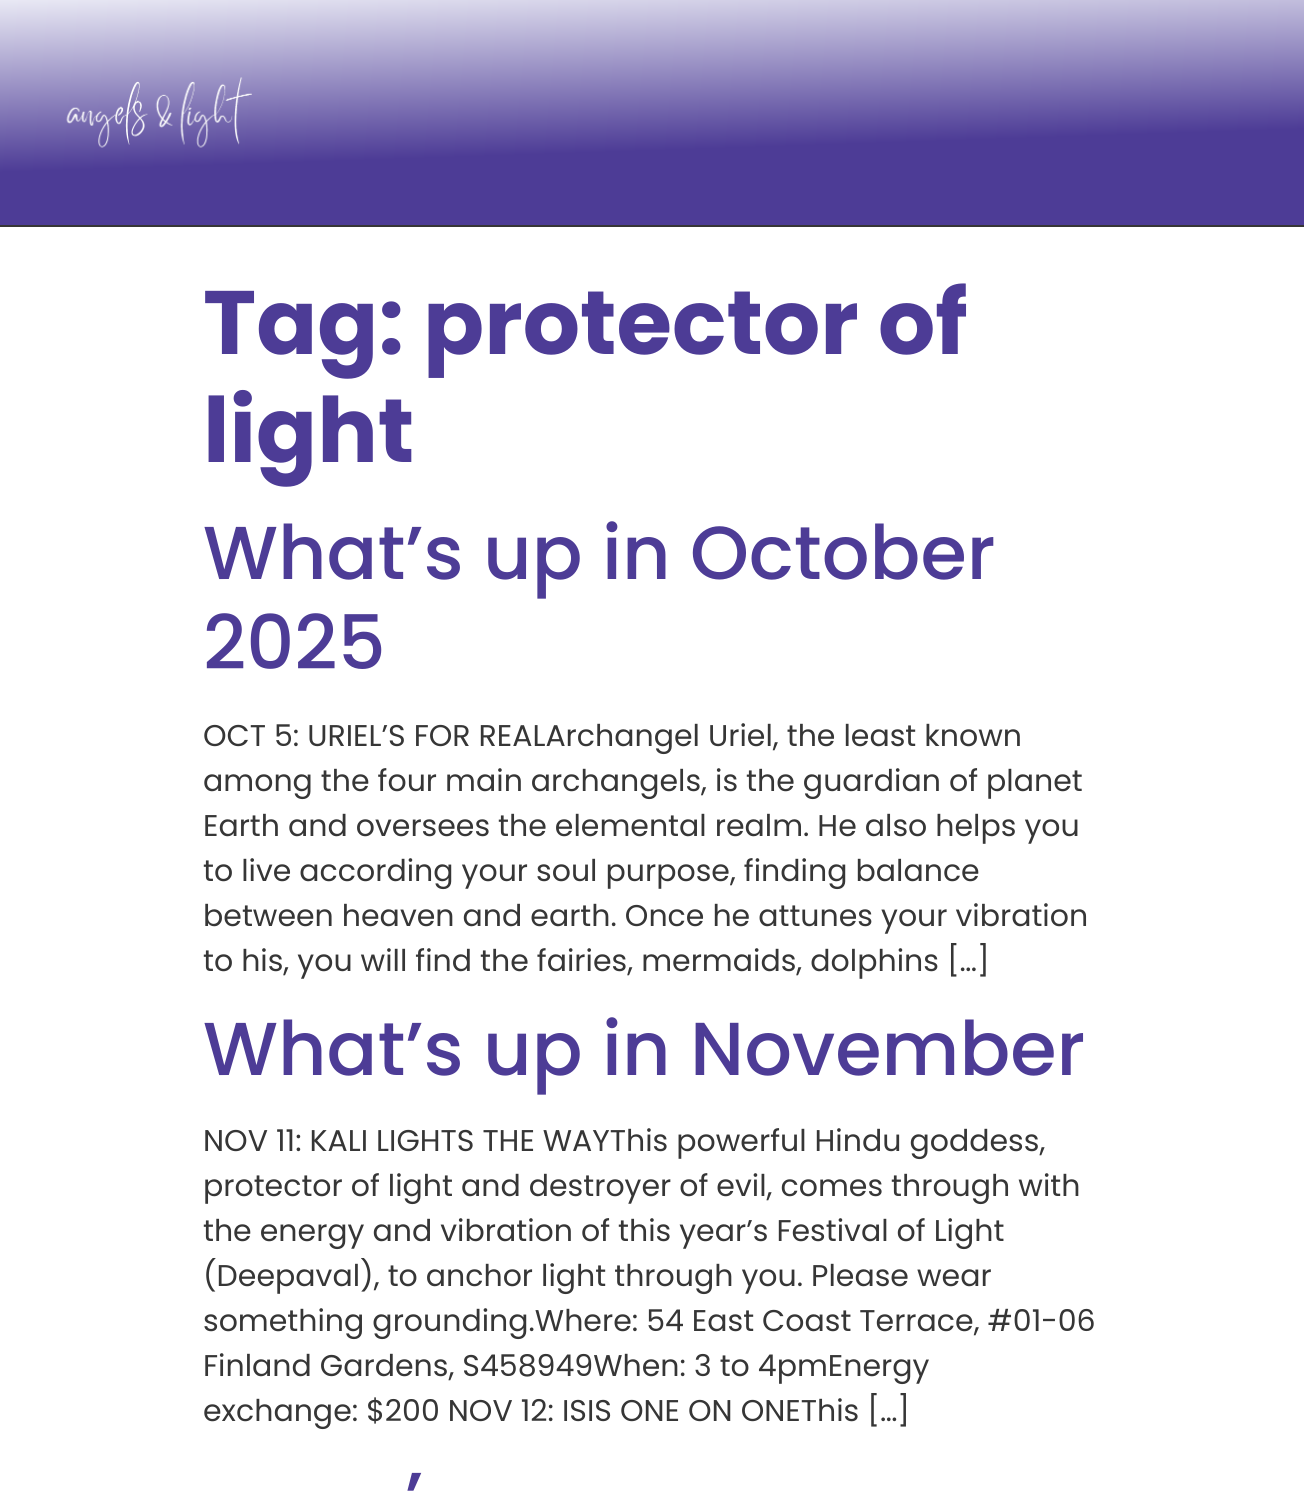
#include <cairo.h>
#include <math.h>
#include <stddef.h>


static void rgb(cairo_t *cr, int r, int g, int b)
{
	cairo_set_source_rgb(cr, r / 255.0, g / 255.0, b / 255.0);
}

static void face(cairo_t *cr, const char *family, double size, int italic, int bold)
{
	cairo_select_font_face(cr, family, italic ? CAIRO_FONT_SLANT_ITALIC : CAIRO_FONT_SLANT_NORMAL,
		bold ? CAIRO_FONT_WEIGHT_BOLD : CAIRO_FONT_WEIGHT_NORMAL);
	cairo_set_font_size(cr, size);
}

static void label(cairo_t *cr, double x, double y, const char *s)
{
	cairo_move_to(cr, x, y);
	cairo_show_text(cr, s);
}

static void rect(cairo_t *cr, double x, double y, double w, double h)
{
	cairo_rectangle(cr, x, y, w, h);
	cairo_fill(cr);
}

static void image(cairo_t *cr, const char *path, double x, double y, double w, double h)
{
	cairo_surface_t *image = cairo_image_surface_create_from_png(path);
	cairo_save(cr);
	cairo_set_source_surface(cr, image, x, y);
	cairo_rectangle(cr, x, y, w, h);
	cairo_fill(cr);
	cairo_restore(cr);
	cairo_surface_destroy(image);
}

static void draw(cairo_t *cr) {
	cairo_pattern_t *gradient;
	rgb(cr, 255, 255, 255);
	cairo_paint(cr);
	gradient = cairo_pattern_create_linear(657, 248, 648, -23);
	cairo_pattern_add_color_stop_rgba(gradient, 0.36, 0.302, 0.235, 0.588, 1);
	cairo_pattern_add_color_stop_rgba(gradient, 1, 0.918, 0.918, 0.961, 1);
	cairo_set_source(cr, gradient);
	cairo_pattern_destroy(gradient);
	rect(cr, 0, 0, 1304, 225);
	rgb(cr, 54, 54, 54);
	rect(cr, 0, 225, 1304, 2);
	image(cr, "image0.png", 66, 77, 186, 71);
	face(cr, "Poppins", 90, 0, 1);
	rgb(cr, 77, 60, 150);
	label(cr, 203, 354, "Tag: protector of");
	label(cr, 203, 462, "light");
	face(cr, "Poppins Medium", 75, 0, 0);
	label(cr, 203, 579, "What’s up in October");
	label(cr, 203, 669, "2025");
	face(cr, "Poppins", 30, 0, 0);
	rgb(cr, 54, 54, 54);
	label(cr, 203, 746, "OCT 5: URIEL’S FOR REALArchangel Uriel, the least known");
	label(cr, 203, 791, "among the four main archangels, is the guardian of planet");
	label(cr, 203, 836, "Earth and oversees the elemental realm. He also helps you");
	label(cr, 203, 881, "to live according your soul purpose, finding balance");
	label(cr, 203, 926, "between heaven and earth. Once he attunes your vibration");
	label(cr, 203, 971, "to his, you will find the fairies, mermaids, dolphins […]");
	face(cr, "Poppins Medium", 75, 0, 0);
	rgb(cr, 77, 60, 150);
	label(cr, 203, 1075, "What’s up in November");
	face(cr, "Poppins", 30, 0, 0);
	rgb(cr, 54, 54, 54);
	label(cr, 203, 1151, "NOV 11: KALI LIGHTS THE WAYThis powerful Hindu goddess,");
	label(cr, 203, 1196, "protector of light and destroyer of evil, comes through with");
	label(cr, 203, 1241, "the energy and vibration of this year’s Festival of Light");
	label(cr, 203, 1286, "(Deepaval), to anchor light through you. Please wear");
	label(cr, 203, 1331, "something grounding.Where: 54 East Coast Terrace, #01-06");
	label(cr, 203, 1376, "Finland Gardens, S458949When: 3 to 4pmEnergy");
	label(cr, 203, 1421, "exchange: $200 NOV 12: ISIS ONE ON ONEThis […]");
	face(cr, "Poppins Medium", 75, 0, 0);
	rgb(cr, 77, 60, 150);
	label(cr, 405, 1525, "’");
}

int main(void) {
	cairo_surface_t *surface = cairo_image_surface_create(CAIRO_FORMAT_RGB24, 1304, 1508);
	cairo_t *cr = cairo_create(surface);
	cairo_font_options_t *options = cairo_font_options_create();
	cairo_font_options_set_hint_metrics(options, CAIRO_HINT_METRICS_OFF);
	cairo_font_options_set_hint_style(options, CAIRO_HINT_STYLE_NONE);
	cairo_set_font_options(cr, options);
	cairo_set_miter_limit(cr, 4);
	draw(cr);
	cairo_surface_write_to_png(surface, "render.png");
	cairo_font_options_destroy(options);
	cairo_destroy(cr);
	cairo_surface_destroy(surface);
	return 0;
}
